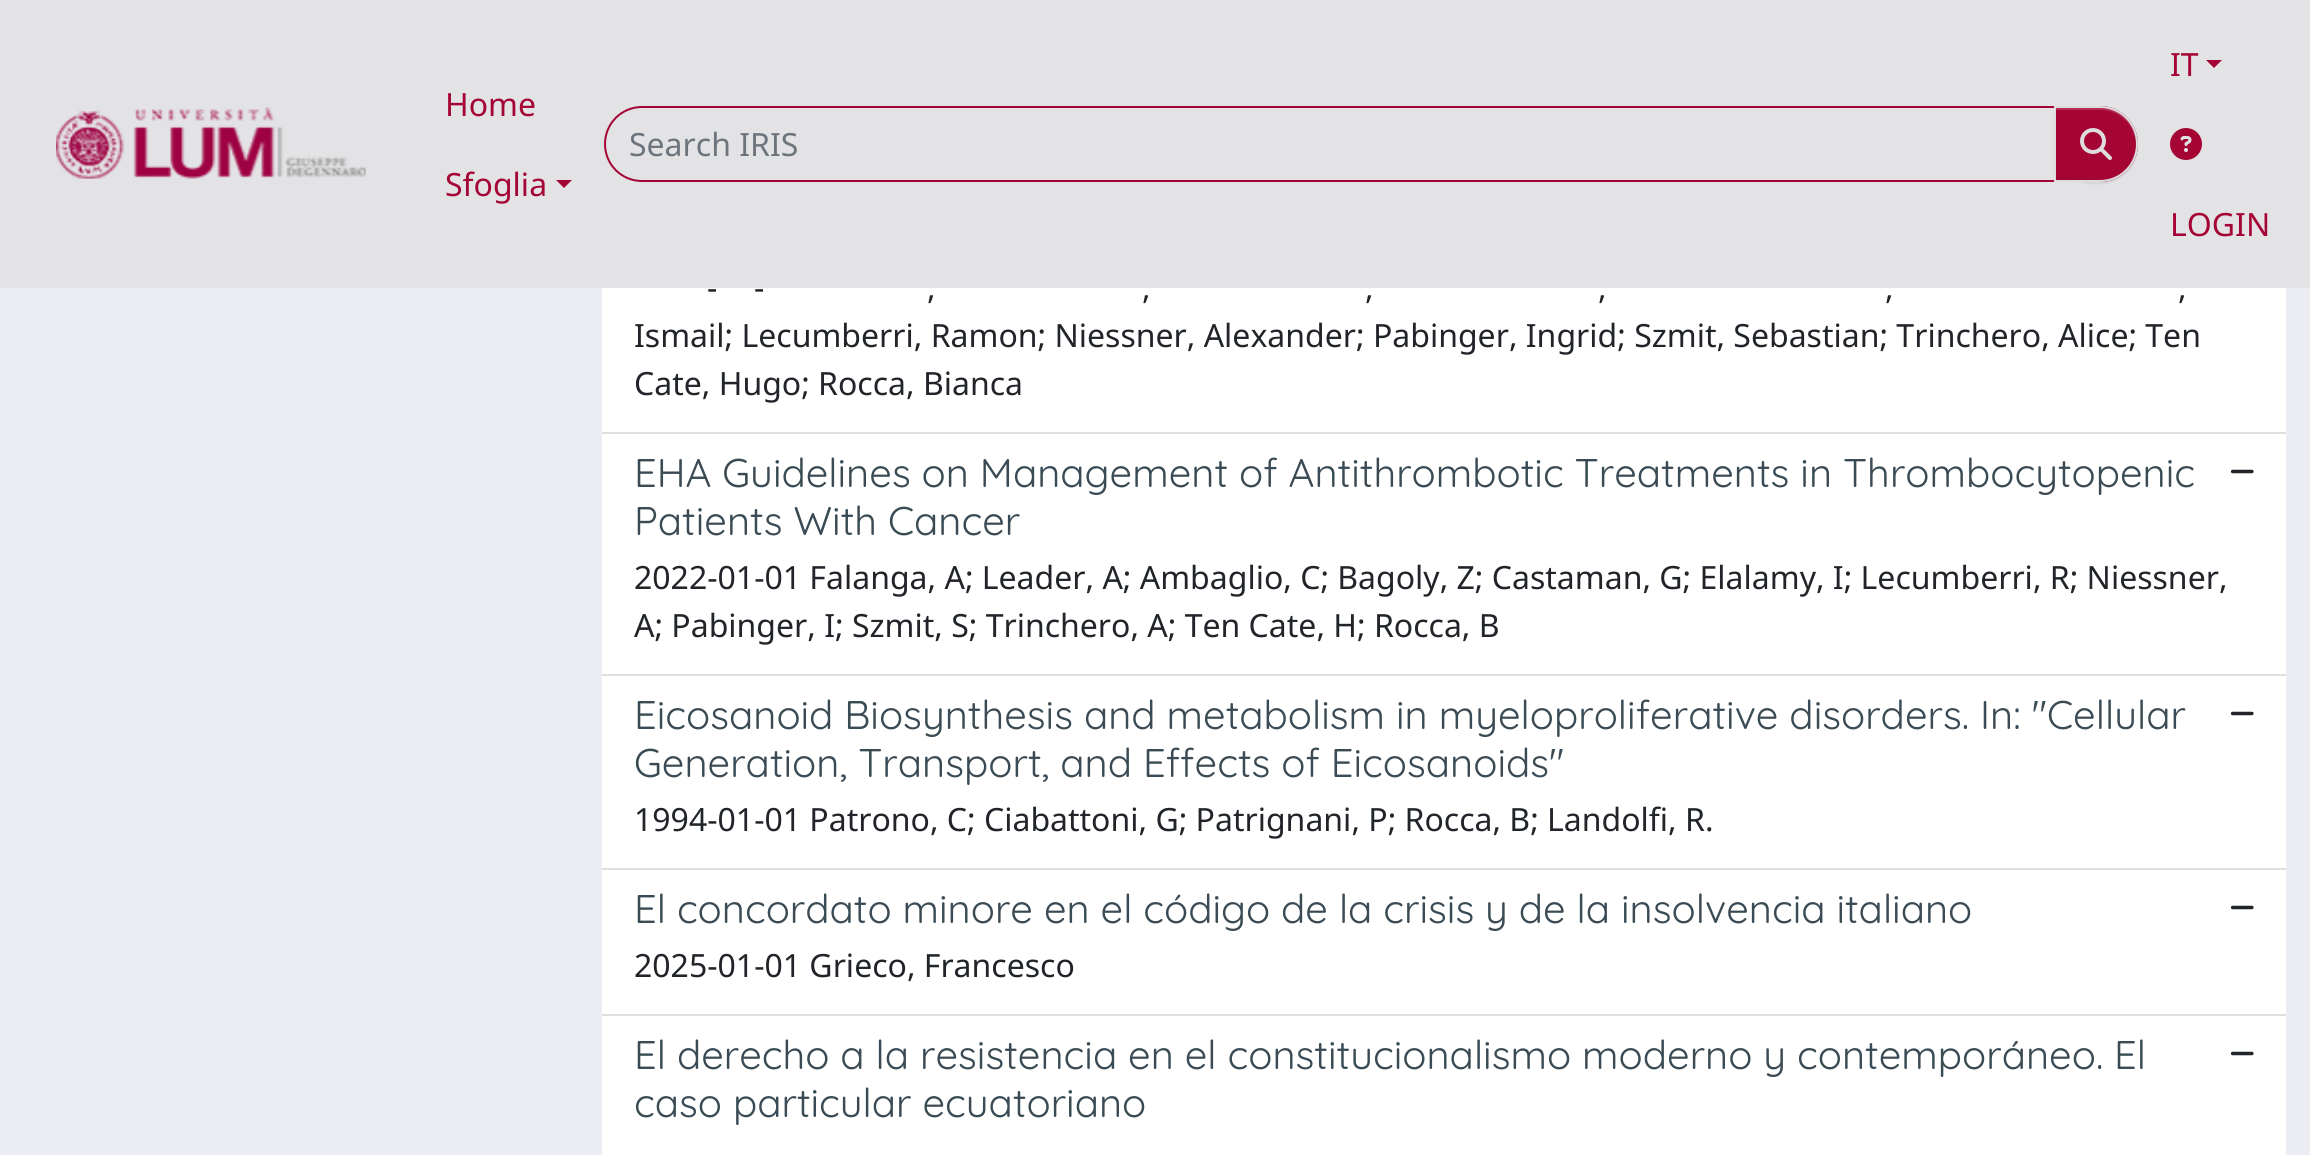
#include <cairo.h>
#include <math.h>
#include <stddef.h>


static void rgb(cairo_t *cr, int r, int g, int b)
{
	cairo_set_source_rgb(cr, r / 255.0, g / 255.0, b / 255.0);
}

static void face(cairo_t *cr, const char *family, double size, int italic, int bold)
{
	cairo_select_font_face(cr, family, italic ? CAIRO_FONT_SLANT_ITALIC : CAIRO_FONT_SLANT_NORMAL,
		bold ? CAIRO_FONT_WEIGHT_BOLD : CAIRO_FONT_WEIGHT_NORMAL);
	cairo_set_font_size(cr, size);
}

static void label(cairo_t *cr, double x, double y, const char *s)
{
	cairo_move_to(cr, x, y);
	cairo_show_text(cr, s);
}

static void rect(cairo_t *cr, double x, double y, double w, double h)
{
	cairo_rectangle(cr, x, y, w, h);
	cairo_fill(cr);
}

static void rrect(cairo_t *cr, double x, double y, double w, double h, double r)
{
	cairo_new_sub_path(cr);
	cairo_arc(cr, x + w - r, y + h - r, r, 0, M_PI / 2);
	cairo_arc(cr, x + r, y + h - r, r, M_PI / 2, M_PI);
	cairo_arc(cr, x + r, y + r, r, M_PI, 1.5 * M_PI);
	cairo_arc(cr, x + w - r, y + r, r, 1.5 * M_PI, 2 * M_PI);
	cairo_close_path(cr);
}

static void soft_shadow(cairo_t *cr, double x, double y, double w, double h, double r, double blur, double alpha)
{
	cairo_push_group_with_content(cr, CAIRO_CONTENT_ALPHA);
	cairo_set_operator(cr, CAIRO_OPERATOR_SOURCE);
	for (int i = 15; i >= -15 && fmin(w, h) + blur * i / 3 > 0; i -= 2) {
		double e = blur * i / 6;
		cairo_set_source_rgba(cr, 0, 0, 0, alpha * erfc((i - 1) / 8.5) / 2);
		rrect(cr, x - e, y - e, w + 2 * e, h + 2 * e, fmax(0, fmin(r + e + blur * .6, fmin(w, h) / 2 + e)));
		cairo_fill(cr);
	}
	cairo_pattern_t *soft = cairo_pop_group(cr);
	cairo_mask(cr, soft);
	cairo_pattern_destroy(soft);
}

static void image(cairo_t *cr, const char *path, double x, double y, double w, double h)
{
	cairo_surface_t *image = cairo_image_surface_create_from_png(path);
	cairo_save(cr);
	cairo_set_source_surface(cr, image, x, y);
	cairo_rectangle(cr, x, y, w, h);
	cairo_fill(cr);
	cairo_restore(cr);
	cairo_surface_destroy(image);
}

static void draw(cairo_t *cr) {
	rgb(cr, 236, 237, 242);
	cairo_paint(cr);
	rgb(cr, 227, 227, 229);
	rect(cr, 0, 0, 2310, 288);
	image(cr, "image0.png", 56, 107, 310, 72);
	face(cr, "Noto Sans", 32, 0, 0);
	rgb(cr, 165, 5, 53);
	label(cr, 445, 116, "Home");
	label(cr, 445, 196, "Sfoglia");
	cairo_new_path(cr);
	cairo_move_to(cr, 556, 180);
	cairo_line_to(cr, 572, 180);
	cairo_line_to(cr, 564, 188);
	cairo_close_path(cr);
	cairo_fill(cr);
	cairo_new_path(cr);
	cairo_move_to(cr, 642, 107);
	cairo_line_to(cr, 2055, 107);
	cairo_line_to(cr, 2055, 181);
	cairo_line_to(cr, 642, 181);
	cairo_curve_to(cr, 621.5, 181, 605, 164.5, 605, 144);
	cairo_curve_to(cr, 605, 123.5, 621.5, 107, 642, 107);
	cairo_close_path(cr);
	cairo_stroke(cr);
	rgb(cr, 108, 117, 125);
	label(cr, 629, 156, "Search IRIS");
	rgb(cr, 0, 0, 0);
	soft_shadow(cr, 2054, 108, 84, 76, 38, 1, 0.07);
	rgb(cr, 165, 5, 53);
	cairo_new_path(cr);
	cairo_move_to(cr, 2054, 106);
	cairo_line_to(cr, 2100, 106);
	cairo_curve_to(cr, 2121, 106, 2138, 123, 2138, 144);
	cairo_curve_to(cr, 2138, 165, 2121, 182, 2100, 182);
	cairo_line_to(cr, 2054, 182);
	cairo_close_path(cr);
	cairo_fill(cr);
	rgb(cr, 179, 43, 83);
	cairo_new_path(cr);
	cairo_move_to(cr, 2056, 110);
	cairo_line_to(cr, 2100, 110);
	cairo_curve_to(cr, 2120, 110, 2135, 125, 2136, 145);
	cairo_line_to(cr, 2136, 144);
	cairo_curve_to(cr, 2136, 124, 2120, 108, 2100, 108);
	cairo_line_to(cr, 2056, 108);
	cairo_close_path(cr);
	cairo_fill(cr);
	cairo_new_path(cr);
	cairo_move_to(cr, 2055, 107);
	cairo_line_to(cr, 2100, 107);
	cairo_curve_to(cr, 2120.5, 107, 2137, 123.5, 2137, 144);
	cairo_curve_to(cr, 2137, 164.5, 2120.5, 181, 2100, 181);
	cairo_line_to(cr, 2055, 181);
	cairo_close_path(cr);
	rgb(cr, 221, 221, 221);
	cairo_stroke(cr);
	image(cr, "image1.png", 2080, 128, 32, 32);
	rgb(cr, 165, 5, 53);
	label(cr, 2170, 76, "IT");
	cairo_new_path(cr);
	cairo_move_to(cr, 2206, 60);
	cairo_line_to(cr, 2222, 60);
	cairo_line_to(cr, 2214, 68);
	cairo_close_path(cr);
	cairo_fill(cr);
	image(cr, "image2.png", 2170, 128, 32, 32);
	label(cr, 2170, 236, "LOGIN");
	rgb(cr, 255, 255, 255);
	rect(cr, 602, 288, 1684, 867);
	rgb(cr, 223, 223, 223);
	rect(cr, 602, 432, 1684, 2);
	rgb(cr, 33, 37, 41);
	label(cr, 707, 299, "-");
	label(cr, 754, 299, "-");
	label(cr, 927, 299, ",");
	label(cr, 1142, 299, ",");
	label(cr, 1365, 299, ",");
	label(cr, 1598, 299, ",");
	label(cr, 1885, 299, ",");
	label(cr, 2178, 299, ",");
	label(cr, 634, 347, "Ismail; Lecumberri, Ramon; Niessner, Alexander; Pabinger, Ingrid; Szmit, Sebastian; Trinchero, Alice; Ten");
	label(cr, 634, 395, "Cate, Hugo; Rocca, Bianca");
	rgb(cr, 223, 223, 223);
	rect(cr, 602, 674, 1684, 2);
	face(cr, "Quicksand", 40, 0, 0);
	rgb(cr, 58, 75, 85);
	label(cr, 634, 487, "EHA Guidelines on Management of Antithrombotic Treatments in Thrombocytopenic");
	label(cr, 634, 535, "Patients With Cancer");
	image(cr, "image3.png", 2230, 469, 24, 5);
	face(cr, "Noto Sans", 32, 0, 0);
	rgb(cr, 33, 37, 41);
	label(cr, 634, 589, "2022-01-01 Falanga, A; Leader, A; Ambaglio, C; Bagoly, Z; Castaman, G; Elalamy, I; Lecumberri, R; Niessner,");
	label(cr, 634, 637, "A; Pabinger, I; Szmit, S; Trinchero, A; Ten Cate, H; Rocca, B");
	rgb(cr, 223, 223, 223);
	rect(cr, 602, 868, 1684, 2);
	face(cr, "Quicksand", 40, 0, 0);
	rgb(cr, 58, 75, 85);
	label(cr, 634, 729, "Eicosanoid Biosynthesis and metabolism in myeloproliferative disorders. In: \"Cellular");
	label(cr, 634, 777, "Generation, Transport, and Effects of Eicosanoids\"");
	image(cr, "image3.png", 2230, 711, 24, 5);
	face(cr, "Noto Sans", 32, 0, 0);
	rgb(cr, 33, 37, 41);
	label(cr, 634, 831, "1994-01-01 Patrono, C; Ciabattoni, G; Patrignani, P; Rocca, B; Landolfi, R.");
	rgb(cr, 223, 223, 223);
	rect(cr, 602, 1014, 1684, 2);
	face(cr, "Quicksand", 40, 0, 0);
	rgb(cr, 58, 75, 85);
	label(cr, 634, 923, "El concordato minore en el código de la crisis y de la insolvencia italiano");
	image(cr, "image3.png", 2230, 905, 24, 5);
	face(cr, "Noto Sans", 32, 0, 0);
	rgb(cr, 33, 37, 41);
	label(cr, 634, 977, "2025-01-01 Grieco, Francesco");
	face(cr, "Quicksand", 40, 0, 0);
	rgb(cr, 58, 75, 85);
	label(cr, 634, 1069, "El derecho a la resistencia en el constitucionalismo moderno y contemporáneo. El");
	label(cr, 634, 1117, "caso particular ecuatoriano");
	image(cr, "image3.png", 2230, 1051, 24, 5);
}

int main(void) {
	cairo_surface_t *surface = cairo_image_surface_create(CAIRO_FORMAT_RGB24, 2310, 1155);
	cairo_t *cr = cairo_create(surface);
	cairo_font_options_t *options = cairo_font_options_create();
	cairo_font_options_set_hint_metrics(options, CAIRO_HINT_METRICS_OFF);
	cairo_font_options_set_hint_style(options, CAIRO_HINT_STYLE_NONE);
	cairo_set_font_options(cr, options);
	cairo_set_miter_limit(cr, 4);
	draw(cr);
	cairo_surface_write_to_png(surface, "render.png");
	cairo_font_options_destroy(options);
	cairo_destroy(cr);
	cairo_surface_destroy(surface);
	return 0;
}
